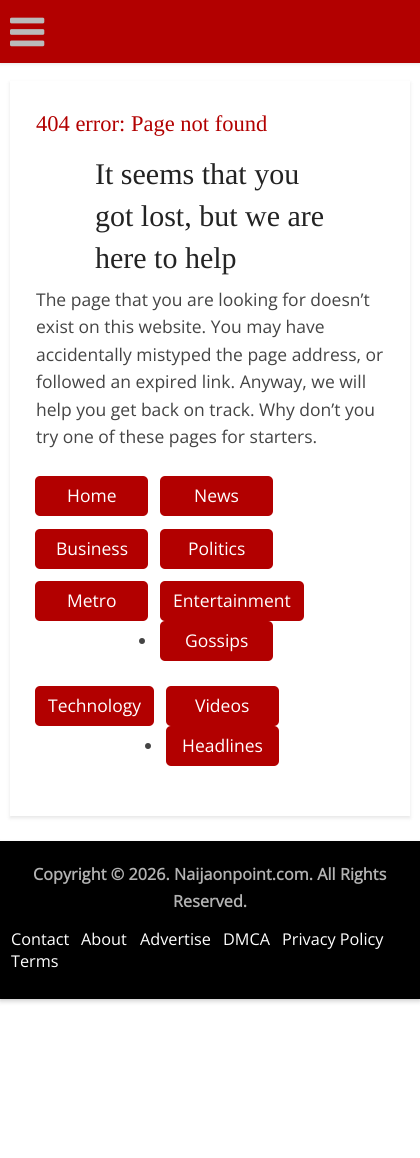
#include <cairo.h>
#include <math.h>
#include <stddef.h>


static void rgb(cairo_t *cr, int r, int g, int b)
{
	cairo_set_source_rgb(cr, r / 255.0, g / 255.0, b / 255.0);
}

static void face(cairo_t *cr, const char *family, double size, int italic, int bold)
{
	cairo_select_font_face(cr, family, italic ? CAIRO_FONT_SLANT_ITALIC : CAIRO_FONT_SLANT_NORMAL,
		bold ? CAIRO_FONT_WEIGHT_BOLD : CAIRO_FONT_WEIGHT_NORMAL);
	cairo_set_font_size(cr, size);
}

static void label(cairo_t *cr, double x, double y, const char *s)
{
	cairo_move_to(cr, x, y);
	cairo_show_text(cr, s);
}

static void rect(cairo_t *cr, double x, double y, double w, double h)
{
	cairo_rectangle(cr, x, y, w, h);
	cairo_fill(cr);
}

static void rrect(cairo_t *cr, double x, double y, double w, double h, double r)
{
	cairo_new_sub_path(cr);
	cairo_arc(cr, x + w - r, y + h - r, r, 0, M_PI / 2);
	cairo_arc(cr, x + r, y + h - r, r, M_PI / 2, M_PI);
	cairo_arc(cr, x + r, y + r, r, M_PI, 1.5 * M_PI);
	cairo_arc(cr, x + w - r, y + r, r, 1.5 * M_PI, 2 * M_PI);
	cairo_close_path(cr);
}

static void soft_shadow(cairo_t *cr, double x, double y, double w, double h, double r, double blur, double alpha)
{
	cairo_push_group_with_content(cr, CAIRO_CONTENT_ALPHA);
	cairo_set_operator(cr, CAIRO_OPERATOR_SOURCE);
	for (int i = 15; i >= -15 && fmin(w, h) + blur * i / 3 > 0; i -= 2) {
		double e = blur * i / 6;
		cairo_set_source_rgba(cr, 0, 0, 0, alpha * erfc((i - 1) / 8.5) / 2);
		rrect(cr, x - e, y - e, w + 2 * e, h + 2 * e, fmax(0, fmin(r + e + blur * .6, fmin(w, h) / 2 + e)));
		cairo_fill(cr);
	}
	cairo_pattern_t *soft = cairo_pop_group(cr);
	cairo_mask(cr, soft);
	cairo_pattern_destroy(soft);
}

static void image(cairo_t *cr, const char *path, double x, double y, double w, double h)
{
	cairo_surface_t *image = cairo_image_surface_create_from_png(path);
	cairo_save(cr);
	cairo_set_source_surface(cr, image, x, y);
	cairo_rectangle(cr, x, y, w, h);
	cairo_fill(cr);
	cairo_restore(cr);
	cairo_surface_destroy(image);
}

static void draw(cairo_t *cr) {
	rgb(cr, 255, 255, 255);
	cairo_paint(cr);
	rgb(cr, 0, 0, 0);
	soft_shadow(cr, 0, 1, 420, 63, 0, 2, 0.1);
	rgb(cr, 178, 0, 0);
	rect(cr, 0, 0, 420, 63);
	image(cr, "image0.png", 10, 17, 35, 30);
	cairo_save(cr);
	cairo_set_fill_rule(cr, CAIRO_FILL_RULE_EVEN_ODD);
	cairo_new_path(cr);
	cairo_move_to(cr, 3, 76);
	cairo_line_to(cr, 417, 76);
	cairo_line_to(cr, 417, 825);
	cairo_line_to(cr, 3, 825);
	cairo_close_path(cr);
	cairo_move_to(cr, 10, 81);
	cairo_line_to(cr, 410, 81);
	cairo_line_to(cr, 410, 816);
	cairo_line_to(cr, 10, 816);
	cairo_close_path(cr);
	cairo_clip(cr);
	rgb(cr, 0, 0, 0);
	soft_shadow(cr, 10, 83, 400, 735, 0, 2, 0.1);
	cairo_restore(cr);
	face(cr, "Liberation Serif", 22.5, 0, 0);
	label(cr, 36, 131, "404 error: Page not found");
	face(cr, "Liberation Serif", 30, 0, 0);
	rgb(cr, 35, 35, 35);
	label(cr, 95, 184, "It seems that you");
	label(cr, 95, 226, "got lost, but we are");
	label(cr, 95, 268, "here to help");
	face(cr, "Open Sans", 17.5, 0, 0);
	rgb(cr, 68, 68, 68);
	label(cr, 36, 306, "The page that you are looking for doesn’t");
	label(cr, 36, 333, "exist on this website. You may have");
	label(cr, 36, 361, "accidentally mistyped the page address, or");
	label(cr, 36, 388, "followed an expired link. Anyway, we will");
	label(cr, 36, 416, "help you get back on track. Why don’t you");
	label(cr, 36, 443, "try one of these pages for starters.");
	rgb(cr, 178, 0, 0);
	rrect(cr, 35, 476, 113, 40, 5);
	cairo_fill(cr);
	rgb(cr, 255, 255, 255);
	label(cr, 67, 502, "Home");
	rgb(cr, 178, 0, 0);
	rrect(cr, 160, 476, 113, 40, 5);
	cairo_fill(cr);
	rgb(cr, 255, 255, 255);
	label(cr, 194, 502, "News");
	rgb(cr, 178, 0, 0);
	rrect(cr, 35, 529, 113, 40, 5);
	cairo_fill(cr);
	rgb(cr, 255, 255, 255);
	label(cr, 56, 555, "Business");
	rgb(cr, 178, 0, 0);
	rrect(cr, 160, 529, 113, 40, 5);
	cairo_fill(cr);
	rgb(cr, 255, 255, 255);
	label(cr, 188, 555, "Politics");
	rgb(cr, 178, 0, 0);
	rrect(cr, 35, 581, 113, 40, 5);
	cairo_fill(cr);
	rgb(cr, 255, 255, 255);
	label(cr, 67, 607, "Metro");
	rgb(cr, 178, 0, 0);
	rrect(cr, 160, 581, 144, 40, 5);
	cairo_fill(cr);
	rgb(cr, 255, 255, 255);
	label(cr, 173, 607, "Entertainment");
	rgb(cr, 68, 68, 68);
	cairo_new_path(cr);
	cairo_arc(cr, 142, 641, 3, 0, 2 * M_PI);
	cairo_fill(cr);
	rgb(cr, 178, 0, 0);
	rrect(cr, 160, 621, 113, 40, 5);
	cairo_fill(cr);
	rgb(cr, 255, 255, 255);
	label(cr, 185, 647, "Gossips");
	rgb(cr, 178, 0, 0);
	rrect(cr, 35, 686, 119, 40, 5);
	cairo_fill(cr);
	rgb(cr, 255, 255, 255);
	label(cr, 48, 712, "Technology");
	rgb(cr, 178, 0, 0);
	rrect(cr, 166, 686, 113, 40, 5);
	cairo_fill(cr);
	rgb(cr, 255, 255, 255);
	label(cr, 195, 712, "Videos");
	rgb(cr, 68, 68, 68);
	cairo_new_path(cr);
	cairo_arc(cr, 148, 746, 3, 0, 2 * M_PI);
	cairo_fill(cr);
	rgb(cr, 178, 0, 0);
	rrect(cr, 166, 726, 113, 40, 5);
	cairo_fill(cr);
	rgb(cr, 255, 255, 255);
	label(cr, 182, 752, "Headlines");
	rgb(cr, 0, 0, 0);
	soft_shadow(cr, 0, 844, 420, 157, 0, 2.5, 0.2);
	rgb(cr, 0, 0, 0);
	rect(cr, 0, 841, 420, 158);
	face(cr, "Open Sans", 16.25, 0, 1);
	rgb(cr, 179, 179, 179);
	label(cr, 33, 880, "Copyright © 2026. Naijaonpoint.com. All Rights");
	label(cr, 173, 907, "Reserved.");
	face(cr, "Open Sans", 16.25, 0, 0);
	rgb(cr, 255, 255, 255);
	label(cr, 11, 945, "Contact");
	label(cr, 81, 945, "About");
	label(cr, 140, 945, "Advertise");
	label(cr, 223, 945, "DMCA");
	label(cr, 282, 945, "Privacy Policy");
	label(cr, 11, 967, "Terms");
}

int main(void) {
	cairo_surface_t *surface = cairo_image_surface_create(CAIRO_FORMAT_RGB24, 420, 1158);
	cairo_t *cr = cairo_create(surface);
	cairo_font_options_t *options = cairo_font_options_create();
	cairo_font_options_set_hint_metrics(options, CAIRO_HINT_METRICS_OFF);
	cairo_font_options_set_hint_style(options, CAIRO_HINT_STYLE_NONE);
	cairo_set_font_options(cr, options);
	cairo_set_miter_limit(cr, 4);
	draw(cr);
	cairo_surface_write_to_png(surface, "render.png");
	cairo_font_options_destroy(options);
	cairo_destroy(cr);
	cairo_surface_destroy(surface);
	return 0;
}
